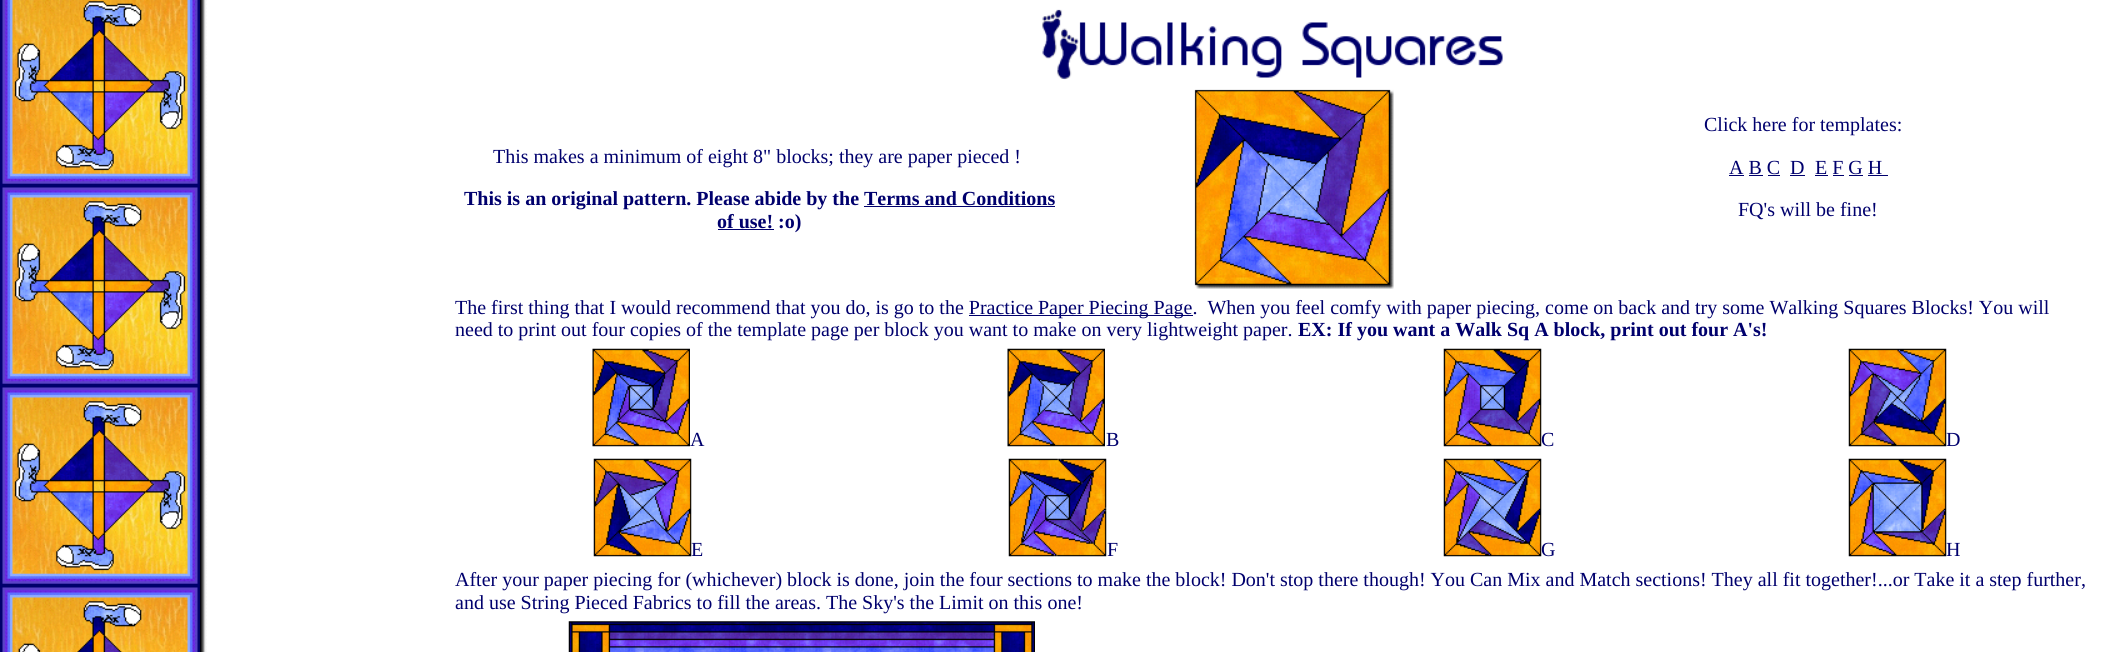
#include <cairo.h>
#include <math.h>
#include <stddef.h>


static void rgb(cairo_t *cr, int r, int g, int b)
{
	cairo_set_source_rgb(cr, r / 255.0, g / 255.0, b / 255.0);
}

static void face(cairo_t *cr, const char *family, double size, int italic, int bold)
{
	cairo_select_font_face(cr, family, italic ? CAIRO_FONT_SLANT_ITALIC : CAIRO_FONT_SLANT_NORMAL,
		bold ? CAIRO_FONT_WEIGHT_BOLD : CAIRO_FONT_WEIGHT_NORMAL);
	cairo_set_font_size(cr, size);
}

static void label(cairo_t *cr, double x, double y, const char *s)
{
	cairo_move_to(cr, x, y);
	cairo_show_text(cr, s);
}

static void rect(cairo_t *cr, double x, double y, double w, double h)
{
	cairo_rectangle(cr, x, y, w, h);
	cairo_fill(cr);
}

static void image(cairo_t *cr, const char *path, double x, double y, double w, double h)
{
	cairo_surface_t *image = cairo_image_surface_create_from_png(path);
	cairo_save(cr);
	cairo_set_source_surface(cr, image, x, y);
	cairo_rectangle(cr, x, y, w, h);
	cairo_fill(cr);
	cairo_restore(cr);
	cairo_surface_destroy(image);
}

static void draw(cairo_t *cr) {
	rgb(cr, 255, 255, 255);
	cairo_paint(cr);
	image(cr, "image0.png", 0, 0, 207, 652);
	image(cr, "image1.png", 1042, 9, 461, 71);
	face(cr, "Liberation Serif", 20, 0, 0);
	rgb(cr, 0, 0, 109);
	label(cr, 493, 163, "This makes a minimum of eight 8\" blocks; they are paper pieced !");
	face(cr, "Liberation Serif", 20, 0, 1);
	label(cr, 464, 205, "This is an original pattern. Please abide by the Terms and Conditions");
	rect(cr, 864, 206, 191, 1);
	rect(cr, 718, 229, 56, 1);
	label(cr, 717, 228, "of use! :o)");
	image(cr, "image2.png", 1194, 89, 200, 200);
	face(cr, "Liberation Serif", 20, 0, 0);
	label(cr, 1704, 131, "Click here for templates:");
	label(cr, 1729, 174, "A B C");
	rect(cr, 1729, 175, 15, 1);
	label(cr, 1790, 174, "D");
	rect(cr, 1790, 175, 15, 1);
	label(cr, 1815, 174, "E F G H");
	rect(cr, 1815, 175, 13, 1);
	rect(cr, 1749, 175, 14, 1);
	rect(cr, 1768, 175, 12, 1);
	rect(cr, 1833, 175, 11, 1);
	rect(cr, 1849, 175, 14, 1);
	rect(cr, 1868, 175, 20, 1);
	label(cr, 1738, 216, "FQ's will be fine!");
	label(cr, 455, 314, "The first thing that I would recommend that you do, is go to the Practice");
	rect(cr, 969, 315, 224, 1);
	label(cr, 1038, 314, "Paper Piecing Page.  When you feel comfy with paper piecing, come on back and try some Walking Squares Blocks! You will");
	label(cr, 455, 336, "need to print out four copies of the template page per block you want to make on very lightweight paper.");
	face(cr, "Liberation Serif", 20, 0, 1);
	label(cr, 1298, 336, "EX: If you want a Walk Sq A block, print out four A's!");
	image(cr, "image3.png", 592, 348, 98, 99);
	face(cr, "Liberation Serif", 20, 0, 0);
	label(cr, 690, 446, "A");
	image(cr, "image4.png", 1007, 348, 98, 99);
	label(cr, 1106, 446, "B");
	image(cr, "image5.png", 1443, 348, 99, 99);
	label(cr, 1541, 446, "C");
	image(cr, "image6.png", 1848, 348, 99, 99);
	label(cr, 1946, 446, "D");
	image(cr, "image7.png", 593, 458, 99, 99);
	label(cr, 691, 556, "E");
	image(cr, "image8.png", 1008, 458, 99, 99);
	label(cr, 1107, 556, "F");
	image(cr, "image9.png", 1443, 458, 99, 99);
	label(cr, 1541, 556, "G");
	image(cr, "image10.png", 1848, 458, 99, 99);
	label(cr, 1946, 556, "H");
	label(cr, 455, 586, "After your paper piecing for (whichever) block is done, join the four sections to make the block! Don't stop there though! You Can Mix and Match sections! They all fit together!...or Take it a step further,");
	label(cr, 455, 609, "and use String Pieced Fabrics to fill the areas. The Sky's the Limit on this one!");
	image(cr, "image11.png", 568, 621, 467, 31);
}

int main(void) {
	cairo_surface_t *surface = cairo_image_surface_create(CAIRO_FORMAT_RGB24, 2106, 652);
	cairo_t *cr = cairo_create(surface);
	cairo_font_options_t *options = cairo_font_options_create();
	cairo_font_options_set_hint_metrics(options, CAIRO_HINT_METRICS_OFF);
	cairo_font_options_set_hint_style(options, CAIRO_HINT_STYLE_NONE);
	cairo_set_font_options(cr, options);
	cairo_set_miter_limit(cr, 4);
	draw(cr);
	cairo_surface_write_to_png(surface, "render.png");
	cairo_font_options_destroy(options);
	cairo_destroy(cr);
	cairo_surface_destroy(surface);
	return 0;
}
